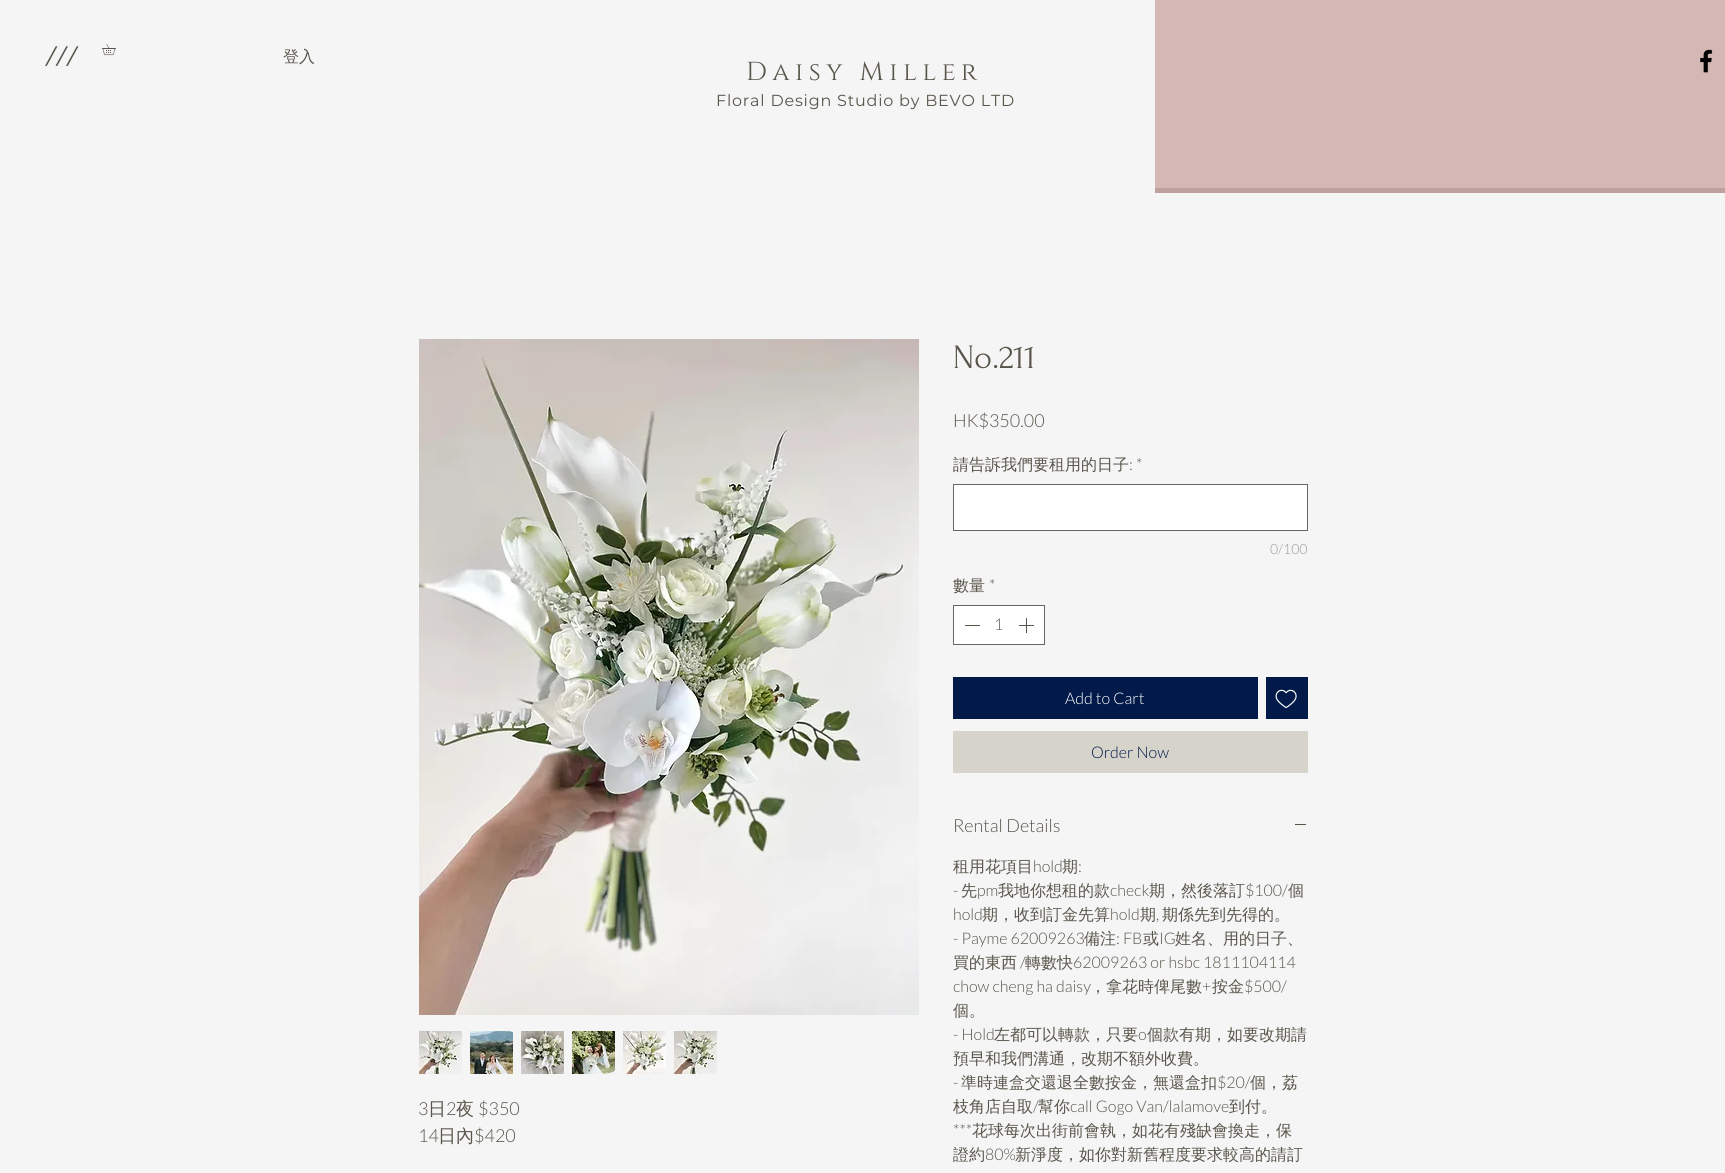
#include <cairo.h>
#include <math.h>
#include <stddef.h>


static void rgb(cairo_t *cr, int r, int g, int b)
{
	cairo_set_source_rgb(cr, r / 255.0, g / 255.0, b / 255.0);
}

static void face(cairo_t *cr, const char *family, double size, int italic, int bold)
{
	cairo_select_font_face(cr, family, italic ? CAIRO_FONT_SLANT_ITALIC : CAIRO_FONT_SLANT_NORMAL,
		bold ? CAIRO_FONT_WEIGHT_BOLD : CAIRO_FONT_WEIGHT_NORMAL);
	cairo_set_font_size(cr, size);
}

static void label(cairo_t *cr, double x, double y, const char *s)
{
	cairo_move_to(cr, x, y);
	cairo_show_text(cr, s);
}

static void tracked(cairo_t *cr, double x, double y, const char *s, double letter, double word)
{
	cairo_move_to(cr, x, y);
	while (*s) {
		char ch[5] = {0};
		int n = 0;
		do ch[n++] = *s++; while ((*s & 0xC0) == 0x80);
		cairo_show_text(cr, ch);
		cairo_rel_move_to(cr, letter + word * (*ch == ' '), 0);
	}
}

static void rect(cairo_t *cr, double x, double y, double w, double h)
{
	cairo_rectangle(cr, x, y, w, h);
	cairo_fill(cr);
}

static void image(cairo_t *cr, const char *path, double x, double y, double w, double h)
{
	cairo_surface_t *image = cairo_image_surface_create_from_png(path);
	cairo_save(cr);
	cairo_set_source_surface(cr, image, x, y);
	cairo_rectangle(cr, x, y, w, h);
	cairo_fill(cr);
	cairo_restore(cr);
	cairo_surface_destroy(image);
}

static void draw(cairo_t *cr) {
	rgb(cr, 245, 245, 245);
	cairo_paint(cr);
	face(cr, "Caudex", 26, 0, 0);
	rgb(cr, 89, 85, 75);
	tracked(cr, 45, 65, "///", -2.5, 0);
	image(cr, "image0.png", 102, 44, 14, 12);
	face(cr, "WenQuanYi Zen Hei Medium", 16, 0, 0);
	label(cr, 283, 62, "登入");
	face(cr, "Cinzel", 26, 0, 0);
	tracked(cr, 746, 80, "Daisy Miller", 5.25, 0);
	face(cr, "Montserrat", 16, 0, 0);
	tracked(cr, 716, 106, "Floral Design Studio by BEVO LTD", 0.8, 0);
	rgb(cr, 213, 184, 181);
	rect(cr, 1155, 0, 570, 188);
	image(cr, "image1.png", 1700, 49, 13, 24);
	rgb(cr, 190, 161, 158);
	rect(cr, 1155, 188, 570, 5);
	image(cr, "image2.png", 419, 339, 500, 676);
	image(cr, "image3.png", 419, 1031, 43, 43);
	image(cr, "image4.png", 470, 1031, 43, 43);
	image(cr, "image5.png", 521, 1031, 43, 43);
	image(cr, "image6.png", 572, 1031, 43, 43);
	image(cr, "image7.png", 623, 1031, 43, 43);
	image(cr, "image8.png", 674, 1031, 43, 43);
	face(cr, "Lato Light", 18, 0, 0);
	rgb(cr, 89, 85, 75);
	label(cr, 418, 1115, "3");
	face(cr, "WenQuanYi Zen Hei Medium", 18, 0, 0);
	label(cr, 428, 1115, "日");
	face(cr, "Lato Light", 18, 0, 0);
	label(cr, 446, 1115, "2");
	face(cr, "WenQuanYi Zen Hei Medium", 18, 0, 0);
	label(cr, 456, 1115, "夜");
	face(cr, "Lato Light", 18, 0, 0);
	label(cr, 478, 1115, "$350");
	label(cr, 418, 1142, "14");
	face(cr, "WenQuanYi Zen Hei Medium", 18, 0, 0);
	label(cr, 438, 1142, "日內");
	face(cr, "Lato Light", 18, 0, 0);
	label(cr, 474, 1142, "$420");
	face(cr, "Forum", 34, 0, 0);
	label(cr, 953, 368, "No.211");
	face(cr, "Lato Light", 18, 0, 0);
	label(cr, 953, 427, "HK$350.00");
	face(cr, "WenQuanYi Zen Hei Medium", 16, 0, 0);
	label(cr, 953, 470, "請告訴我們要租用的日子");
	face(cr, "Lato Light", 16, 0, 0);
	label(cr, 1136, 470, "*");
	label(cr, 1129, 470, ":");
	rgb(cr, 255, 255, 255);
	cairo_rectangle(cr, 953.5, 484.5, 354, 46);
	cairo_fill_preserve(cr);
	rgb(cr, 102, 102, 102);
	cairo_set_line_width(cr, 1);
	cairo_stroke(cr);
	face(cr, "Lato Light", 14, 0, 0);
	rgb(cr, 153, 153, 151);
	label(cr, 1270, 554, "0/100");
	face(cr, "WenQuanYi Zen Hei Medium", 16, 0, 0);
	rgb(cr, 89, 85, 75);
	label(cr, 953, 591, "數量");
	face(cr, "Lato Light", 16, 0, 0);
	label(cr, 989, 591, "*");
	rgb(cr, 255, 255, 255);
	cairo_rectangle(cr, 953.5, 605.5, 91, 39);
	cairo_fill_preserve(cr);
	rgb(cr, 102, 102, 102);
	cairo_stroke(cr);
	rgb(cr, 89, 85, 75);
	rect(cr, 965, 625, 15, 1);
	label(cr, 994, 630, "1");
	image(cr, "image9.png", 1019, 618, 15, 15);
	rgb(cr, 2, 26, 74);
	rect(cr, 953, 677, 305, 42);
	rgb(cr, 255, 255, 255);
	label(cr, 1065, 704, "Add to Cart");
	rgb(cr, 2, 26, 74);
	rect(cr, 1266, 677, 42, 42);
	image(cr, "image10.png", 1275, 689, 22, 19);
	rgb(cr, 214, 211, 203);
	rect(cr, 953, 731, 355, 42);
	rgb(cr, 2, 26, 74);
	label(cr, 1091, 758, "Order Now");
	face(cr, "Lato Light", 18, 0, 0);
	rgb(cr, 89, 85, 75);
	label(cr, 953, 832, "Rental Details");
	rect(cr, 1295, 824, 11, 1);
	face(cr, "WenQuanYi Zen Hei Medium", 16, 0, 0);
	label(cr, 953, 872, "租用花項目");
	face(cr, "Lato Light", 16, 0, 0);
	label(cr, 1033, 872, "hold");
	face(cr, "WenQuanYi Zen Hei Medium", 16, 0, 0);
	label(cr, 1062, 872, "期");
	face(cr, "Lato Light", 16, 0, 0);
	label(cr, 1078, 872, ":");
	label(cr, 953, 896, "-");
	face(cr, "WenQuanYi Zen Hei Medium", 16, 0, 0);
	label(cr, 961, 896, "先");
	face(cr, "Lato Light", 16, 0, 0);
	label(cr, 977, 896, "pm");
	face(cr, "WenQuanYi Zen Hei Medium", 16, 0, 0);
	label(cr, 998, 896, "我地你想租的款");
	face(cr, "Lato Light", 16, 0, 0);
	label(cr, 1110, 896, "check");
	face(cr, "WenQuanYi Zen Hei Medium", 16, 0, 0);
	label(cr, 1149, 896, "期，然後落訂");
	face(cr, "Lato Light", 16, 0, 0);
	label(cr, 1245, 896, "$100/");
	face(cr, "WenQuanYi Zen Hei Medium", 16, 0, 0);
	label(cr, 1288, 896, "個");
	face(cr, "Lato Light", 16, 0, 0);
	label(cr, 953, 920, "hold");
	face(cr, "WenQuanYi Zen Hei Medium", 16, 0, 0);
	label(cr, 982, 920, "期，收到訂金先算");
	face(cr, "Lato Light", 16, 0, 0);
	label(cr, 1110, 920, "hold");
	face(cr, "WenQuanYi Zen Hei Medium", 16, 0, 0);
	label(cr, 1140, 920, "期");
	face(cr, "Lato Light", 16, 0, 0);
	label(cr, 1156, 920, ",");
	face(cr, "WenQuanYi Zen Hei Medium", 16, 0, 0);
	label(cr, 1162, 920, "期係先到先得的。");
	face(cr, "Lato Light", 16, 0, 0);
	label(cr, 953, 944, "- Payme 62009263");
	face(cr, "WenQuanYi Zen Hei Medium", 16, 0, 0);
	label(cr, 1084, 944, "備注");
	face(cr, "Lato Light", 16, 0, 0);
	label(cr, 1116, 944, ": FB");
	face(cr, "WenQuanYi Zen Hei Medium", 16, 0, 0);
	label(cr, 1143, 944, "或");
	face(cr, "Lato Light", 16, 0, 0);
	label(cr, 1159, 944, "IG");
	face(cr, "WenQuanYi Zen Hei Medium", 16, 0, 0);
	label(cr, 1175, 944, "姓名、用的日子、");
	label(cr, 953, 968, "買的東西");
	face(cr, "Lato Light", 16, 0, 0);
	label(cr, 1020, 968, "/");
	face(cr, "WenQuanYi Zen Hei Medium", 16, 0, 0);
	label(cr, 1025, 968, "轉數快");
	face(cr, "Lato Light", 16, 0, 0);
	label(cr, 1073, 968, "62009263 or hsbc 1811104114");
	label(cr, 953, 992, "chow cheng ha daisy");
	face(cr, "WenQuanYi Zen Hei Medium", 16, 0, 0);
	label(cr, 1090, 992, "，拿花時俾尾數");
	face(cr, "Lato Light", 16, 0, 0);
	label(cr, 1202, 992, "+");
	face(cr, "WenQuanYi Zen Hei Medium", 16, 0, 0);
	label(cr, 1212, 992, "按金");
	face(cr, "Lato Light", 16, 0, 0);
	label(cr, 1244, 992, "$500/");
	face(cr, "WenQuanYi Zen Hei Medium", 16, 0, 0);
	label(cr, 953, 1016, "個。");
	face(cr, "Lato Light", 16, 0, 0);
	label(cr, 953, 1040, "- Hold");
	face(cr, "WenQuanYi Zen Hei Medium", 16, 0, 0);
	label(cr, 994, 1040, "左都可以轉款，只要");
	face(cr, "Lato Light", 16, 0, 0);
	label(cr, 1138, 1040, "o");
	face(cr, "WenQuanYi Zen Hei Medium", 16, 0, 0);
	label(cr, 1147, 1040, "個款有期，如要改期請");
	label(cr, 953, 1064, "預早和我們溝通，改期不額外收費。");
	face(cr, "Lato Light", 16, 0, 0);
	label(cr, 953, 1088, "-");
	face(cr, "WenQuanYi Zen Hei Medium", 16, 0, 0);
	label(cr, 961, 1088, "準時連盒交還退全數按金，無還盒扣");
	face(cr, "Lato Light", 16, 0, 0);
	label(cr, 1217, 1088, "$20/");
	face(cr, "WenQuanYi Zen Hei Medium", 16, 0, 0);
	label(cr, 1250, 1088, "個，荔");
	label(cr, 953, 1112, "枝角店自取");
	face(cr, "Lato Light", 16, 0, 0);
	label(cr, 1033, 1112, "/");
	face(cr, "WenQuanYi Zen Hei Medium", 16, 0, 0);
	label(cr, 1038, 1112, "幫你");
	face(cr, "Lato Light", 16, 0, 0);
	label(cr, 1070, 1112, "call Gogo Van/lalamove");
	face(cr, "WenQuanYi Zen Hei Medium", 16, 0, 0);
	label(cr, 1229, 1112, "到付。");
	face(cr, "Lato Light", 16, 0, 0);
	label(cr, 953, 1136, "***");
	face(cr, "WenQuanYi Zen Hei Medium", 16, 0, 0);
	label(cr, 972, 1136, "花球每次出街前會執，如花有殘缺會換走，保");
	label(cr, 953, 1160, "證約");
	face(cr, "Lato Light", 16, 0, 0);
	label(cr, 985, 1160, "80%");
	face(cr, "WenQuanYi Zen Hei Medium", 16, 0, 0);
	label(cr, 1015, 1160, "新淨度，如你對新舊程度要求較高的請訂");
}

int main(void) {
	cairo_surface_t *surface = cairo_image_surface_create(CAIRO_FORMAT_RGB24, 1725, 1173);
	cairo_t *cr = cairo_create(surface);
	cairo_font_options_t *options = cairo_font_options_create();
	cairo_font_options_set_hint_metrics(options, CAIRO_HINT_METRICS_OFF);
	cairo_font_options_set_hint_style(options, CAIRO_HINT_STYLE_NONE);
	cairo_set_font_options(cr, options);
	cairo_set_miter_limit(cr, 4);
	draw(cr);
	cairo_surface_write_to_png(surface, "render.png");
	cairo_font_options_destroy(options);
	cairo_destroy(cr);
	cairo_surface_destroy(surface);
	return 0;
}
